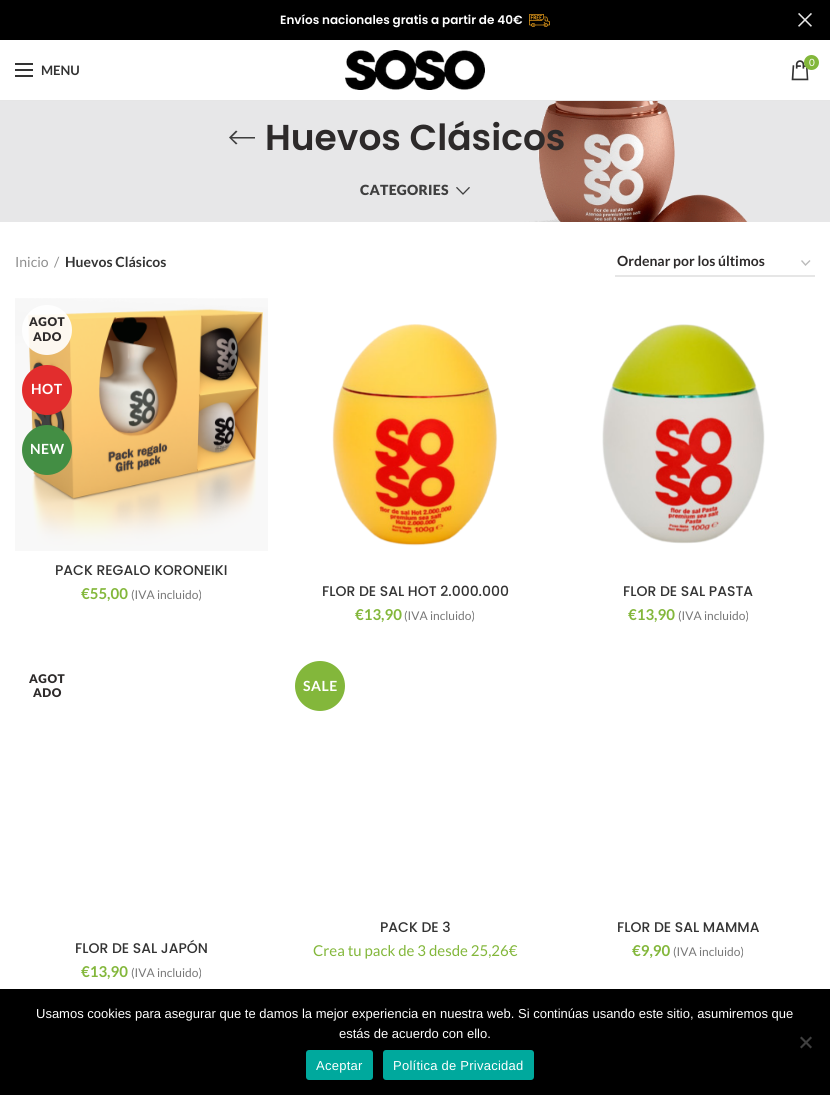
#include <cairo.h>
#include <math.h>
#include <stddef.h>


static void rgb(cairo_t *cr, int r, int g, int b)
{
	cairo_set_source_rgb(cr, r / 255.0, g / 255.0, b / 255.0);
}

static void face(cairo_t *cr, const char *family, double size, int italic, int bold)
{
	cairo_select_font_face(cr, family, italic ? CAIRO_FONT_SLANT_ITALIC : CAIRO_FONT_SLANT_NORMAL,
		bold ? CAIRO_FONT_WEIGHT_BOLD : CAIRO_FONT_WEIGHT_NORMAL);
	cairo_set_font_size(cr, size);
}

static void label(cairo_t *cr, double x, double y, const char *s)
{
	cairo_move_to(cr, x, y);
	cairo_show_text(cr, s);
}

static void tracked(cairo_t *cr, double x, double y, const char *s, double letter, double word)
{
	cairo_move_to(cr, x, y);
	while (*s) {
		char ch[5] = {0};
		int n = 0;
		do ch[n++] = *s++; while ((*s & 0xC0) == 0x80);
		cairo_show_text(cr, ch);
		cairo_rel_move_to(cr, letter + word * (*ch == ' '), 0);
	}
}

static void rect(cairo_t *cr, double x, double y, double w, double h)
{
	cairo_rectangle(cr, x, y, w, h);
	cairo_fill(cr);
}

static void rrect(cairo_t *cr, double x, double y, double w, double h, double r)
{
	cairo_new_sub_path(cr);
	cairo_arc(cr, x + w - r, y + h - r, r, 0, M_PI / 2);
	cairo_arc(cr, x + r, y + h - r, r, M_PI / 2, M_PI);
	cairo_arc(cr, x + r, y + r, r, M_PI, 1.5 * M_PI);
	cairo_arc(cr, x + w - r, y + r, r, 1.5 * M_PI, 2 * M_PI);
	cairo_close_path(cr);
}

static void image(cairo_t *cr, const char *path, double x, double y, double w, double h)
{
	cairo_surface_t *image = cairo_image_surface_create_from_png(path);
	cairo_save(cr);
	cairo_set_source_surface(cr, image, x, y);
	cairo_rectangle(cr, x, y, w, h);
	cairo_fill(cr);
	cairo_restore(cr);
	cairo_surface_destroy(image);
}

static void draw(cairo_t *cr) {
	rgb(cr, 255, 255, 255);
	cairo_paint(cr);
	rgb(cr, 0, 0, 0);
	rect(cr, 0, 0, 830, 40);
	face(cr, "Poppins SemiBold", 12, 0, 0);
	rgb(cr, 255, 255, 255);
	label(cr, 280, 24, "Envíos nacionales gratis a partir de 40€");
	image(cr, "image0.png", 529, 14, 21, 13);
	image(cr, "image1.png", 798, 13, 14, 14);
	rgb(cr, 0, 0, 0);
	rect(cr, 0, 989, 830, 106);
	face(cr, "Liberation Sans", 13, 0, 0);
	rgb(cr, 255, 255, 255);
	label(cr, 36, 1018, "Usamos cookies para asegurar que te damos la mejor experiencia en nuestra web. Si continúas usando este sitio, asumiremos que");
	label(cr, 339, 1038, "estás de acuerdo con ello.");
	rgb(cr, 64, 64, 64);
	cairo_new_path(cr);
	cairo_move_to(cr, 810.5, 1036.5);
	cairo_line_to(cr, 812, 1038);
	cairo_line_to(cr, 801.5, 1048.5);
	cairo_line_to(cr, 800, 1047);
	cairo_close_path(cr);
	cairo_fill(cr);
	cairo_new_path(cr);
	cairo_move_to(cr, 800, 1038);
	cairo_line_to(cr, 801.5, 1036.5);
	cairo_line_to(cr, 812, 1047);
	cairo_line_to(cr, 810.5, 1048.5);
	cairo_close_path(cr);
	cairo_fill(cr);
	rgb(cr, 0, 169, 157);
	rrect(cr, 306, 1050, 67, 30, 3);
	cairo_fill(cr);
	rgb(cr, 255, 255, 255);
	tracked(cr, 316, 1070, "Aceptar", 0.25, 0);
	rgb(cr, 0, 169, 157);
	rrect(cr, 383, 1050, 151, 30, 3);
	cairo_fill(cr);
	rgb(cr, 255, 255, 255);
	tracked(cr, 393, 1070, "Política de Privacidad", 0.25, 0);
	rgb(cr, 230, 230, 230);
	rect(cr, 0, 100, 830, 1);
	image(cr, "image2.png", 345, 50, 140, 40);
	image(cr, "image3.png", 791, 60, 18, 21);
	rgb(cr, 131, 183, 59);
	cairo_arc(cr, 811.5, 62.5, 7.5, 0, 2 * M_PI);
	cairo_fill(cr);
	face(cr, "Lato", 10, 0, 0);
	rgb(cr, 255, 255, 255);
	label(cr, 809, 66, "0");
	rgb(cr, 51, 51, 51);
	rect(cr, 15, 69, 18, 2);
	rect(cr, 15, 63, 18, 2);
	rect(cr, 15, 75, 18, 2);
	face(cr, "Lato", 13, 0, 1);
	label(cr, 41, 75, "MENU");
	image(cr, "image4.png", 0, 101, 830, 121);
	rgb(cr, 63, 63, 63);
	cairo_new_path(cr);
	cairo_move_to(cr, 255, 137);
	cairo_line_to(cr, 255, 138.5);
	cairo_line_to(cr, 232, 138.5);
	cairo_line_to(cr, 237.5, 143.5);
	cairo_line_to(cr, 236, 144.5);
	cairo_line_to(cr, 229, 137.5);
	cairo_line_to(cr, 236, 130.5);
	cairo_line_to(cr, 237.5, 131.5);
	cairo_line_to(cr, 232, 137);
	cairo_close_path(cr);
	cairo_fill(cr);
	face(cr, "Poppins SemiBold", 36, 0, 0);
	rgb(cr, 45, 42, 42);
	label(cr, 265, 150, "Huevos Clásicos");
	face(cr, "Lato Black", 14, 0, 0);
	rgb(cr, 63, 63, 63);
	tracked(cr, 360, 195, "CATEGORIES", 0.25, 0);
	image(cr, "image5.png", 456, 187, 14, 8);
	face(cr, "Lato", 14, 0, 0);
	rgb(cr, 142, 142, 142);
	label(cr, 15, 267, "Inicio");
	label(cr, 54, 267, "/");
	face(cr, "Lato", 14, 0, 1);
	rgb(cr, 51, 51, 51);
	label(cr, 65, 267, "Huevos Clásicos");
	cairo_new_path(cr);
	cairo_move_to(cr, 801.5, 260.5);
	cairo_line_to(cr, 805.5, 265);
	cairo_line_to(cr, 810, 260.5);
	rgb(cr, 187, 187, 187);
	cairo_set_line_width(cr, 1.4);
	cairo_stroke(cr);
	rgb(cr, 230, 230, 230);
	rect(cr, 615, 275, 200, 2);
	rgb(cr, 45, 42, 42);
	label(cr, 617, 266, "Ordenar por los últimos");
	image(cr, "image6.png", 15, 298, 253, 253);
	cairo_set_source_rgba(cr, 1, 1, 1, 0.9);
	cairo_arc(cr, 47, 330, 25, 0, 2 * M_PI);
	cairo_fill(cr);
	face(cr, "Lato Black", 12, 0, 0);
	rgb(cr, 45, 42, 42);
	tracked(cr, 29, 326, "AGOT", 0.5, 0);
	tracked(cr, 33, 341, "ADO", 0.5, 0);
	rgb(cr, 226, 45, 45);
	cairo_new_path(cr);
	cairo_arc(cr, 47, 390, 25, 0, 2 * M_PI);
	cairo_fill(cr);
	face(cr, "Lato", 14, 0, 1);
	rgb(cr, 255, 255, 255);
	tracked(cr, 31, 394, "HOT", 0.5, 0);
	rgb(cr, 67, 142, 68);
	cairo_new_path(cr);
	cairo_arc(cr, 47, 450, 25, 0, 2 * M_PI);
	cairo_fill(cr);
	rgb(cr, 255, 255, 255);
	tracked(cr, 30, 454, "NEW", 0.5, 0);
	face(cr, "Poppins Medium", 14, 0, 0);
	rgb(cr, 51, 51, 51);
	label(cr, 55, 575, "PACK REGALO KORONEIKI");
	face(cr, "Lato", 15, 0, 1);
	rgb(cr, 131, 183, 59);
	label(cr, 81, 599, "€55,00");
	face(cr, "Lato", 12, 0, 0);
	rgb(cr, 119, 119, 119);
	label(cr, 131, 599, "(IVA incluido)");
	image(cr, "image7.png", 332, 324, 166, 222);
	face(cr, "Poppins Medium", 14, 0, 0);
	rgb(cr, 51, 51, 51);
	label(cr, 322, 596, "FLOR DE SAL HOT 2.000.000");
	face(cr, "Lato", 15, 0, 1);
	rgb(cr, 131, 183, 59);
	label(cr, 355, 620, "€13,90");
	face(cr, "Lato", 12, 0, 0);
	rgb(cr, 119, 119, 119);
	label(cr, 404, 620, "(IVA incluido)");
	image(cr, "image8.png", 602, 324, 163, 220);
	face(cr, "Poppins Medium", 14, 0, 0);
	rgb(cr, 51, 51, 51);
	label(cr, 623, 596, "FLOR DE SAL PASTA");
	face(cr, "Lato", 15, 0, 1);
	rgb(cr, 131, 183, 59);
	label(cr, 628, 620, "€13,90");
	face(cr, "Lato", 12, 0, 0);
	rgb(cr, 119, 119, 119);
	label(cr, 678, 620, "(IVA incluido)");
	face(cr, "Lato Black", 12, 0, 0);
	rgb(cr, 45, 42, 42);
	tracked(cr, 29, 683, "AGOT", 0.5, 0);
	tracked(cr, 33, 697, "ADO", 0.5, 0);
	face(cr, "Poppins Medium", 14, 0, 0);
	rgb(cr, 51, 51, 51);
	label(cr, 75, 953, "FLOR DE SAL JAPÓN");
	face(cr, "Lato", 15, 0, 1);
	rgb(cr, 131, 183, 59);
	label(cr, 81, 977, "€13,90");
	face(cr, "Lato", 12, 0, 0);
	rgb(cr, 119, 119, 119);
	label(cr, 131, 977, "(IVA incluido)");
	rgb(cr, 131, 183, 59);
	cairo_new_path(cr);
	cairo_arc(cr, 320, 686, 25, 0, 2 * M_PI);
	cairo_fill(cr);
	face(cr, "Lato", 14, 0, 1);
	rgb(cr, 255, 255, 255);
	tracked(cr, 303, 691, "SALE", 0.5, 0);
	face(cr, "Poppins Medium", 14, 0, 0);
	rgb(cr, 51, 51, 51);
	label(cr, 380, 932, "PACK DE 3");
	face(cr, "Lato", 15, 0, 0);
	rgb(cr, 131, 183, 59);
	label(cr, 313, 956, "Crea tu pack de 3 desde 25,26€");
	face(cr, "Poppins Medium", 14, 0, 0);
	rgb(cr, 51, 51, 51);
	label(cr, 617, 932, "FLOR DE SAL MAMMA");
	face(cr, "Lato", 15, 0, 1);
	rgb(cr, 131, 183, 59);
	label(cr, 632, 956, "€9,90");
	face(cr, "Lato", 12, 0, 0);
	rgb(cr, 119, 119, 119);
	label(cr, 673, 956, "(IVA incluido)");
}

int main(void) {
	cairo_surface_t *surface = cairo_image_surface_create(CAIRO_FORMAT_RGB24, 830, 1095);
	cairo_t *cr = cairo_create(surface);
	cairo_font_options_t *options = cairo_font_options_create();
	cairo_font_options_set_hint_metrics(options, CAIRO_HINT_METRICS_OFF);
	cairo_font_options_set_hint_style(options, CAIRO_HINT_STYLE_NONE);
	cairo_set_font_options(cr, options);
	cairo_set_miter_limit(cr, 4);
	draw(cr);
	cairo_surface_write_to_png(surface, "render.png");
	cairo_font_options_destroy(options);
	cairo_destroy(cr);
	cairo_surface_destroy(surface);
	return 0;
}
